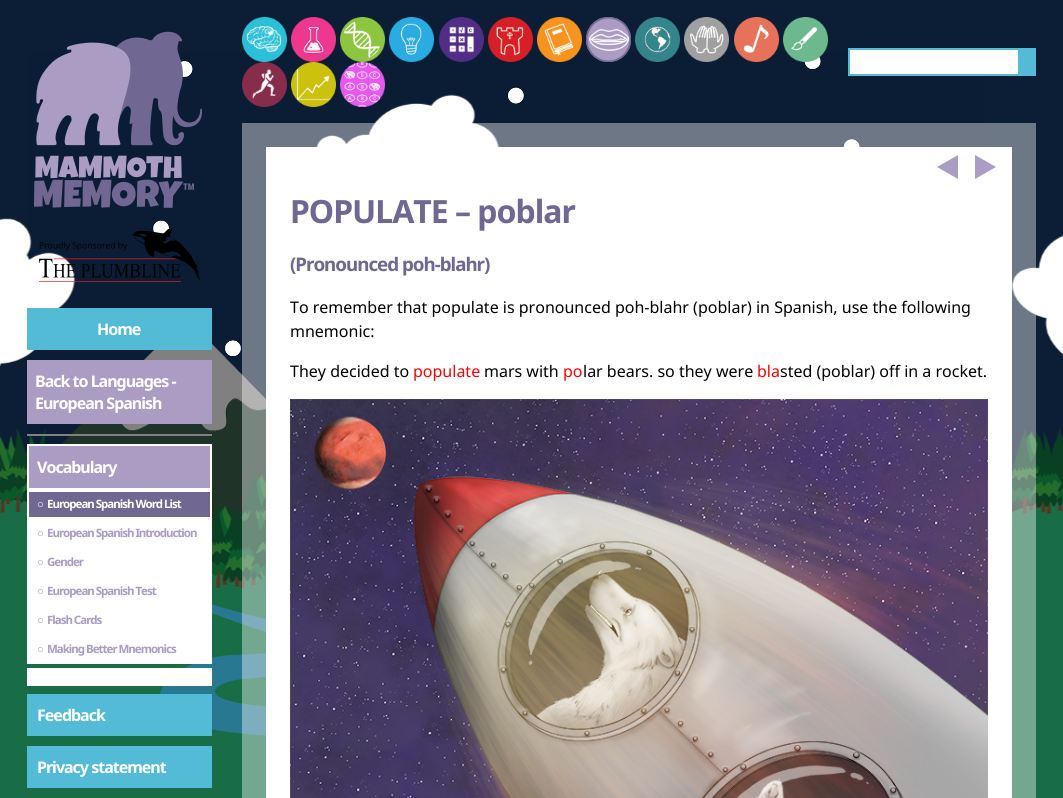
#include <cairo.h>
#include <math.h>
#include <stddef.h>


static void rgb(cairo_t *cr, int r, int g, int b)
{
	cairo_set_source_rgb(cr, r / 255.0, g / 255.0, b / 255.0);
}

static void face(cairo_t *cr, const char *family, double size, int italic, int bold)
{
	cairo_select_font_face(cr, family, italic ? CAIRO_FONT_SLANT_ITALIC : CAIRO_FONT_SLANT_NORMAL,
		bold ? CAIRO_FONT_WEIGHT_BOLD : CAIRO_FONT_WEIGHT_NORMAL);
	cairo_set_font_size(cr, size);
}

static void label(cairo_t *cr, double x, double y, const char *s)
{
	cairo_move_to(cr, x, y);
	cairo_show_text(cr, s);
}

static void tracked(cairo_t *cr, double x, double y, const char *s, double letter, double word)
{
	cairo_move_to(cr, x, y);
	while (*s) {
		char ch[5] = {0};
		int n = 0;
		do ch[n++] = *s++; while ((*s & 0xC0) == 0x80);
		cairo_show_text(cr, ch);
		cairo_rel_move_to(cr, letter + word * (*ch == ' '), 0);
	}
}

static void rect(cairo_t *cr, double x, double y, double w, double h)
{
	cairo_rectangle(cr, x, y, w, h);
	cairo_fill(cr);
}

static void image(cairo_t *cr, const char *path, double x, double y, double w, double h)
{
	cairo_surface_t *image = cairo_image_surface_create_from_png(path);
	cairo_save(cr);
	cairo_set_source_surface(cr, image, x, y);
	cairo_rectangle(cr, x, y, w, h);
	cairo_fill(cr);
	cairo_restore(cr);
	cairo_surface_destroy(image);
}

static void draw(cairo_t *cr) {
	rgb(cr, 11, 30, 53);
	cairo_paint(cr);
	image(cr, "image0.png", 27, 52, 958, 392);
	image(cr, "image1.png", 0, 94, 1063, 272);
	image(cr, "image2.png", 12, 344, 1025, 229);
	image(cr, "image3.png", 0, 427, 1063, 371);
	image(cr, "image4.png", 242, 17, 45, 45);
	image(cr, "image5.png", 291, 17, 45, 45);
	image(cr, "image6.png", 340, 17, 45, 45);
	image(cr, "image7.png", 389, 17, 45, 45);
	image(cr, "image8.png", 439, 17, 45, 45);
	image(cr, "image9.png", 488, 17, 45, 45);
	image(cr, "image10.png", 537, 17, 45, 45);
	image(cr, "image11.png", 586, 17, 45, 45);
	image(cr, "image12.png", 586, 17, 45, 45);
	image(cr, "image13.png", 635, 17, 45, 45);
	image(cr, "image14.png", 684, 17, 45, 45);
	image(cr, "image15.png", 734, 17, 45, 45);
	image(cr, "image16.png", 783, 17, 45, 45);
	image(cr, "image17.png", 242, 62, 45, 45);
	image(cr, "image18.png", 291, 62, 45, 45);
	image(cr, "image19.png", 340, 62, 45, 45);
	rgb(cr, 255, 255, 255);
	cairo_rectangle(cr, 849, 49, 170, 26);
	cairo_fill_preserve(cr);
	rgb(cr, 84, 187, 215);
	cairo_stroke(cr);
	rect(cr, 1020, 48, 16, 28);
	cairo_set_source_rgba(cr, 1, 1, 1, 0.4);
	rect(cr, 242, 123, 794, 675);
	rgb(cr, 255, 255, 255);
	rect(cr, 266, 147, 746, 651);
	rgb(cr, 171, 156, 196);
	cairo_new_path(cr);
	cairo_move_to(cr, 958, 155);
	cairo_line_to(cr, 958, 179);
	cairo_line_to(cr, 937, 167);
	cairo_close_path(cr);
	cairo_move_to(cr, 975, 179);
	cairo_line_to(cr, 975, 155);
	cairo_line_to(cr, 996, 167);
	cairo_close_path(cr);
	cairo_fill(cr);
	face(cr, "Noto Sans", 32, 0, 1);
	rgb(cr, 112, 103, 146);
	tracked(cr, 290, 223, "POPULATE – poblar", -1, 0);
	face(cr, "Noto Sans", 18.75, 0, 1);
	tracked(cr, 290, 271, "(Pronounced poh-blahr)", -1, 0);
	face(cr, "Noto Sans", 16, 0, 0);
	rgb(cr, 0, 0, 0);
	label(cr, 290, 313, "To remember that populate is pronounced poh-blahr (poblar) in Spanish, use the following");
	label(cr, 290, 337, "mnemonic:");
	label(cr, 290, 377, "They decided to");
	rgb(cr, 255, 0, 0);
	label(cr, 413, 377, "populate");
	rgb(cr, 0, 0, 0);
	label(cr, 484, 377, "mars with");
	rgb(cr, 255, 0, 0);
	label(cr, 563, 377, "po");
	rgb(cr, 0, 0, 0);
	label(cr, 583, 377, "lar bears. so they were");
	rgb(cr, 255, 0, 0);
	label(cr, 757, 377, "bla");
	rgb(cr, 0, 0, 0);
	label(cr, 780, 377, "sted (poblar) off in a rocket.");
	image(cr, "image20.png", 290, 399, 698, 399);
	image(cr, "image21.png", 34, 31, 168, 177);
	image(cr, "image22.png", 38, 229, 163, 53);
	rgb(cr, 84, 187, 215);
	rect(cr, 27, 308, 185, 42);
	face(cr, "Noto Sans", 16, 0, 1);
	rgb(cr, 255, 255, 255);
	tracked(cr, 97, 335, "Home", -1, 0);
	rgb(cr, 171, 156, 196);
	rect(cr, 27, 360, 185, 64);
	rgb(cr, 255, 255, 255);
	tracked(cr, 35, 387, "Back to Languages -", -1, 0);
	tracked(cr, 35, 409, "European Spanish", -1, 0);
	rgb(cr, 128, 128, 128);
	rect(cr, 27, 434, 185, 2);
	rgb(cr, 171, 156, 196);
	cairo_rectangle(cr, 28, 445, 183, 44);
	cairo_fill_preserve(cr);
	rgb(cr, 255, 255, 255);
	cairo_stroke(cr);
	tracked(cr, 37, 473, "Vocabulary", -1, 0);
	rect(cr, 27, 519, 185, 145);
	rgb(cr, 112, 103, 146);
	cairo_rectangle(cr, 28, 491, 183, 27);
	cairo_fill_preserve(cr);
	rgb(cr, 255, 255, 255);
	cairo_stroke(cr);
	face(cr, "Liberation Sans", 11.5, 0, 1);
	tracked(cr, 37, 508, "○", -1, 0);
	face(cr, "Noto Sans", 11.5, 0, 1);
	tracked(cr, 47, 508, "European Spanish Word List", -1, 0);
	face(cr, "Liberation Sans", 11.5, 0, 1);
	rgb(cr, 171, 156, 196);
	tracked(cr, 37, 537, "○", -1, 0);
	face(cr, "Noto Sans", 11.5, 0, 1);
	tracked(cr, 47, 537, "European Spanish Introduction", -1, 0);
	face(cr, "Liberation Sans", 11.5, 0, 1);
	tracked(cr, 37, 566, "○", -1, 0);
	face(cr, "Noto Sans", 11.5, 0, 1);
	tracked(cr, 47, 566, "Gender", -1, 0);
	face(cr, "Liberation Sans", 11.5, 0, 1);
	tracked(cr, 37, 595, "○", -1, 0);
	face(cr, "Noto Sans", 11.5, 0, 1);
	tracked(cr, 47, 595, "European Spanish Test", -1, 0);
	face(cr, "Liberation Sans", 11.5, 0, 1);
	tracked(cr, 37, 624, "○", -1, 0);
	face(cr, "Noto Sans", 11.5, 0, 1);
	tracked(cr, 47, 624, "Flash Cards", -1, 0);
	face(cr, "Liberation Sans", 11.5, 0, 1);
	tracked(cr, 37, 653, "○", -1, 0);
	face(cr, "Noto Sans", 11.5, 0, 1);
	tracked(cr, 47, 653, "Making Better Mnemonics", -1, 0);
	rgb(cr, 255, 255, 255);
	rect(cr, 27, 668, 185, 18);
	rgb(cr, 84, 187, 215);
	rect(cr, 27, 694, 185, 42);
	face(cr, "Noto Sans", 16, 0, 1);
	rgb(cr, 255, 255, 255);
	tracked(cr, 37, 721, "Feedback", -1, 0);
	rgb(cr, 84, 187, 215);
	rect(cr, 27, 746, 185, 42);
	rgb(cr, 255, 255, 255);
	tracked(cr, 37, 773, "Privacy statement", -1, 0);
}

int main(void) {
	cairo_surface_t *surface = cairo_image_surface_create(CAIRO_FORMAT_RGB24, 1063, 798);
	cairo_t *cr = cairo_create(surface);
	cairo_font_options_t *options = cairo_font_options_create();
	cairo_font_options_set_hint_metrics(options, CAIRO_HINT_METRICS_OFF);
	cairo_font_options_set_hint_style(options, CAIRO_HINT_STYLE_NONE);
	cairo_set_font_options(cr, options);
	cairo_set_miter_limit(cr, 4);
	draw(cr);
	cairo_surface_write_to_png(surface, "render.png");
	cairo_font_options_destroy(options);
	cairo_destroy(cr);
	cairo_surface_destroy(surface);
	return 0;
}
